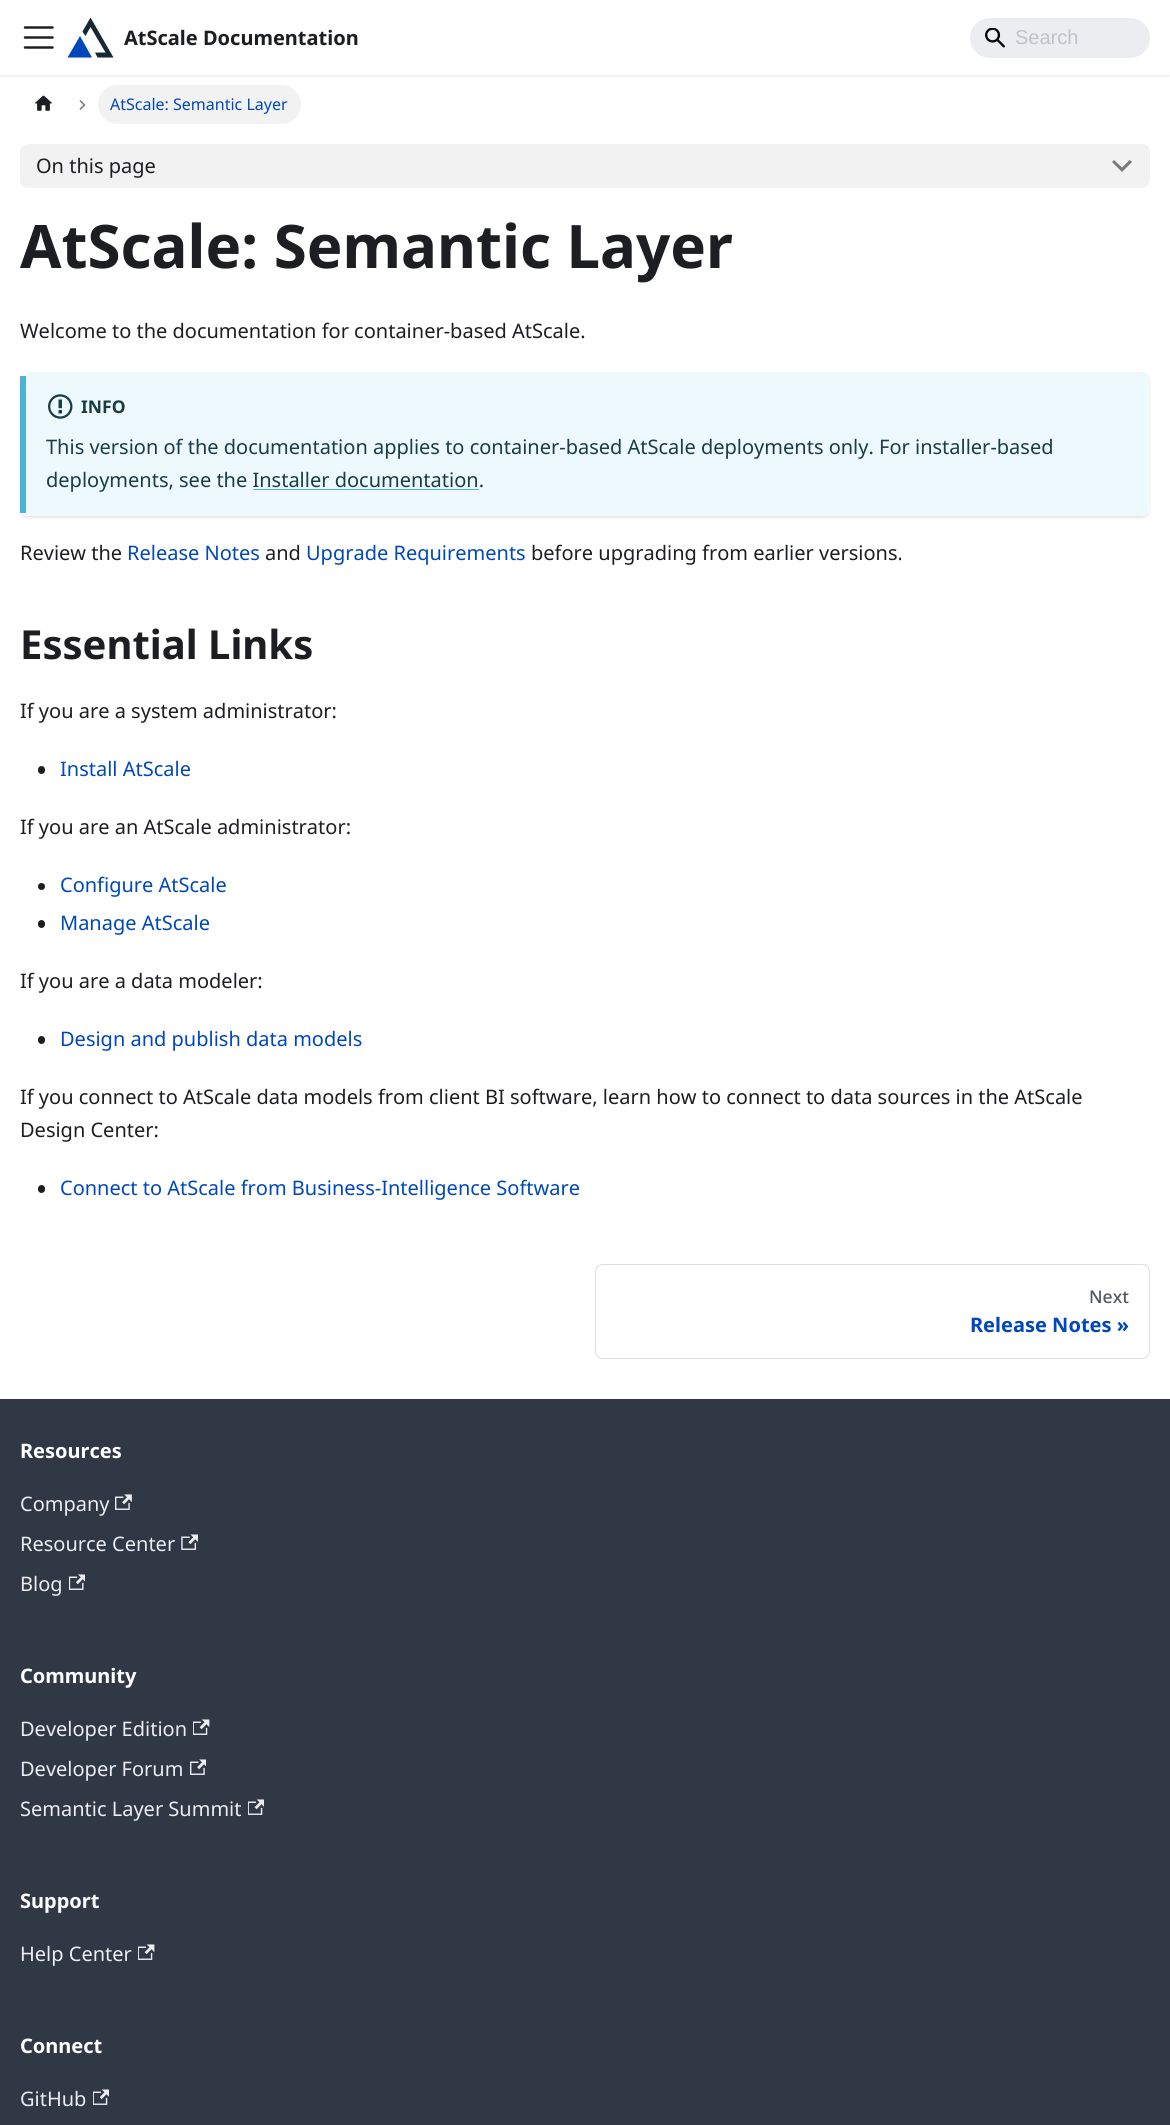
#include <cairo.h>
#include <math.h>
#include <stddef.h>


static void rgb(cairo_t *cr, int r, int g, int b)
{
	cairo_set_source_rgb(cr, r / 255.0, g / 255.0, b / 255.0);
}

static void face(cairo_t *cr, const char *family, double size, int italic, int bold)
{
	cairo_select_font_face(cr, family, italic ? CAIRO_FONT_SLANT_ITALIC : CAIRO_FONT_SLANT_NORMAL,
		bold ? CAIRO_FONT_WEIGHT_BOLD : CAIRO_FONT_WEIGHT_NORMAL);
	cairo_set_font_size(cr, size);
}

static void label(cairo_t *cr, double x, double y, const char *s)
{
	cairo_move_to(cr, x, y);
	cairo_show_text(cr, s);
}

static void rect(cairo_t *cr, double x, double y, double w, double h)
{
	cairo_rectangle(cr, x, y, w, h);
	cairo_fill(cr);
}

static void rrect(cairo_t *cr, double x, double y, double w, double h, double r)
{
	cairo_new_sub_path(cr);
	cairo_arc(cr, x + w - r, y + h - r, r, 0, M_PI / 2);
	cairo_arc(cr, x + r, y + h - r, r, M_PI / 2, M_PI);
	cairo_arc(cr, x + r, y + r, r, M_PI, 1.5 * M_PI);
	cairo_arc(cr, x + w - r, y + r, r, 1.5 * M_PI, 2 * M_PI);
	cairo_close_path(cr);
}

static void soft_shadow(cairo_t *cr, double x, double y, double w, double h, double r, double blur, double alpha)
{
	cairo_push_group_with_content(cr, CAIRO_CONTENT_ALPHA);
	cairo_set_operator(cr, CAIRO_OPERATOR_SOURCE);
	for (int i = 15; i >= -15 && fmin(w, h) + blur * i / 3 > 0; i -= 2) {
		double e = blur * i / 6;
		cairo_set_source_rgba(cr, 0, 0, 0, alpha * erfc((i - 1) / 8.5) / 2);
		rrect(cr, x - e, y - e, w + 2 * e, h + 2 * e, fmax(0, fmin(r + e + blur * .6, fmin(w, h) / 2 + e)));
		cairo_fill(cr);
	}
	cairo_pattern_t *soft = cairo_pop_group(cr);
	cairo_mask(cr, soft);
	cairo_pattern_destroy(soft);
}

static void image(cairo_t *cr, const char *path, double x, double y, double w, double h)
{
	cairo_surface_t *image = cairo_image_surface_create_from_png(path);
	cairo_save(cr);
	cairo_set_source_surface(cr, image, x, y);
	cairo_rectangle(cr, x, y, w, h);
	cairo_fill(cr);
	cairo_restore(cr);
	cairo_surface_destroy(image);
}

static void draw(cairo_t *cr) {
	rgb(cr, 255, 255, 255);
	cairo_paint(cr);
	cairo_save(cr);
	cairo_rectangle(cr, 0, 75, 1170, 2);
	cairo_clip(cr);
	rgb(cr, 0, 0, 0);
	soft_shadow(cr, 0, 1, 1170, 75, 0, 1, 0.1);
	cairo_restore(cr);
	cairo_new_path(cr);
	cairo_move_to(cr, 25, 27.5);
	cairo_line_to(cr, 52.5, 27.5);
	cairo_move_to(cr, 25, 37.5);
	cairo_line_to(cr, 52.5, 37.5);
	cairo_move_to(cr, 25, 47.5);
	cairo_line_to(cr, 52.5, 47.5);
	rgb(cr, 28, 30, 33);
	cairo_set_line_width(cr, 2.5);
	cairo_set_line_cap(cr, CAIRO_LINE_CAP_ROUND);
	cairo_stroke(cr);
	rgb(cr, 0, 71, 187);
	cairo_new_path(cr);
	cairo_move_to(cr, 67.5, 57.5);
	cairo_line_to(cr, 92, 57.5);
	cairo_line_to(cr, 80, 36);
	cairo_close_path(cr);
	cairo_fill(cr);
	rgb(cr, 23, 41, 52);
	cairo_new_path(cr);
	cairo_move_to(cr, 90.5, 17.5);
	cairo_line_to(cr, 82.5, 31.5);
	cairo_line_to(cr, 84, 34);
	cairo_line_to(cr, 85.5, 36);
	cairo_line_to(cr, 90.5, 27);
	cairo_line_to(cr, 105.5, 52.5);
	cairo_line_to(cr, 95, 52.5);
	cairo_line_to(cr, 97.5, 57.5);
	cairo_line_to(cr, 113.5, 57.5);
	cairo_close_path(cr);
	cairo_fill(cr);
	face(cr, "Noto Sans", 20, 0, 1);
	rgb(cr, 28, 30, 33);
	label(cr, 124, 45, "AtScale Documentation");
	rgb(cr, 235, 237, 240);
	rrect(cr, 970, 18, 180, 40, 20);
	cairo_fill(cr);
	image(cr, "image0.png", 985, 28, 20, 20);
	face(cr, "Liberation Sans", 20, 0, 0);
	rgb(cr, 190, 195, 201);
	label(cr, 1015, 44, "Search");
	image(cr, "image1.png", 35, 95, 17, 16);
	image(cr, "image2.png", 79, 100, 7, 10);
	rgb(cr, 242, 242, 242);
	rrect(cr, 98, 85, 203, 39, 19.5);
	cairo_fill(cr);
	face(cr, "Noto Sans", 16, 0, 0);
	rgb(cr, 0, 71, 187);
	label(cr, 110, 110, "AtScale: Semantic Layer");
	rgb(cr, 242, 242, 242);
	rrect(cr, 20, 144, 1130, 44, 8);
	cairo_fill(cr);
	face(cr, "Noto Sans", 20, 0, 0);
	rgb(cr, 28, 30, 33);
	label(cr, 36, 173, "On this page");
	rgb(cr, 121, 121, 121);
	cairo_new_path(cr);
	cairo_move_to(cr, 1129.5, 160);
	cairo_line_to(cr, 1122, 167.5);
	cairo_line_to(cr, 1114, 160);
	cairo_line_to(cr, 1112, 162);
	cairo_line_to(cr, 1122, 172);
	cairo_line_to(cr, 1132, 162);
	cairo_close_path(cr);
	cairo_fill(cr);
	face(cr, "Noto Sans", 60, 0, 1);
	rgb(cr, 28, 30, 33);
	label(cr, 20, 268, "AtScale: Semantic Layer");
	face(cr, "Noto Sans", 20, 0, 0);
	label(cr, 20, 338, "Welcome to the documentation for container-based AtScale.");
	cairo_save(cr);
	cairo_set_fill_rule(cr, CAIRO_FILL_RULE_EVEN_ODD);
	cairo_new_path(cr);
	cairo_move_to(cr, 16, 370);
	cairo_line_to(cr, 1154, 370);
	cairo_line_to(cr, 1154, 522);
	cairo_line_to(cr, 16, 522);
	cairo_close_path(cr);
	cairo_move_to(cr, 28, 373);
	cairo_line_to(cr, 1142, 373);
	cairo_curve_to(cr, 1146.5, 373, 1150, 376.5, 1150, 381);
	cairo_line_to(cr, 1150, 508);
	cairo_curve_to(cr, 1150, 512.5, 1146.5, 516, 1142, 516);
	cairo_line_to(cr, 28, 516);
	cairo_curve_to(cr, 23.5, 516, 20, 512.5, 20, 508);
	cairo_line_to(cr, 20, 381);
	cairo_curve_to(cr, 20, 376.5, 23.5, 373, 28, 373);
	cairo_close_path(cr);
	cairo_clip(cr);
	rgb(cr, 0, 0, 0);
	soft_shadow(cr, 20, 374, 1130, 144, 8, 1, 0.1);
	cairo_restore(cr);
	rgb(cr, 238, 249, 253);
	cairo_new_path(cr);
	cairo_move_to(cr, 28, 372);
	cairo_line_to(cr, 1142, 372);
	cairo_curve_to(cr, 1146, 372, 1150, 376, 1150, 380);
	cairo_line_to(cr, 1150, 508);
	cairo_curve_to(cr, 1150, 513, 1146, 516, 1142, 516);
	cairo_line_to(cr, 28, 516);
	cairo_curve_to(cr, 27, 516, 26, 513, 26, 508);
	cairo_line_to(cr, 26, 380);
	cairo_curve_to(cr, 26, 376, 27, 372, 28, 372);
	cairo_close_path(cr);
	cairo_fill(cr);
	rgb(cr, 76, 179, 212);
	rect(cr, 20, 376, 6, 137);
	image(cr, "image3.png", 48, 394, 25, 25);
	face(cr, "Noto Sans", 17.5, 0, 1);
	rgb(cr, 25, 60, 71);
	label(cr, 81, 413, "INFO");
	face(cr, "Noto Sans", 20, 0, 0);
	label(cr, 46, 454, "This version of the documentation applies to container-based AtScale deployments only. For installer-based");
	label(cr, 46, 487, "deployments, see the Installer documentation.");
	rgb(cr, 76, 179, 212);
	rect(cr, 253, 489, 226, 1);
	rgb(cr, 28, 30, 33);
	label(cr, 20, 560, "Review the");
	rgb(cr, 0, 71, 187);
	label(cr, 127, 560, "Release Notes");
	rgb(cr, 28, 30, 33);
	label(cr, 265, 560, "and");
	rgb(cr, 0, 71, 187);
	label(cr, 306, 560, "Upgrade Requirements");
	rgb(cr, 28, 30, 33);
	label(cr, 531, 560, "before upgrading from earlier versions.");
	face(cr, "Noto Sans", 40, 0, 1);
	label(cr, 20, 659, "Essential Links");
	face(cr, "Noto Sans", 20, 0, 0);
	label(cr, 20, 718, "If you are a system administrator:");
	rrect(cr, 38, 766, 7, 8, 3.5);
	cairo_fill(cr);
	rgb(cr, 0, 71, 187);
	label(cr, 60, 776, "Install AtScale");
	rgb(cr, 28, 30, 33);
	label(cr, 20, 834, "If you are an AtScale administrator:");
	cairo_new_path(cr);
	cairo_arc(cr, 41.5, 886.5, 3.5, 0, 2 * M_PI);
	cairo_fill(cr);
	rgb(cr, 0, 71, 187);
	label(cr, 60, 892, "Configure AtScale");
	rgb(cr, 28, 30, 33);
	rrect(cr, 38, 920, 7, 8, 3.5);
	cairo_fill(cr);
	rgb(cr, 0, 71, 187);
	label(cr, 60, 930, "Manage AtScale");
	rgb(cr, 28, 30, 33);
	label(cr, 20, 988, "If you are a data modeler:");
	rrect(cr, 38, 1036, 7, 8, 3.5);
	cairo_fill(cr);
	rgb(cr, 0, 71, 187);
	label(cr, 60, 1046, "Design and publish data models");
	rgb(cr, 28, 30, 33);
	label(cr, 20, 1104, "If you connect to AtScale data models from client BI software, learn how to connect to data sources in the AtScale");
	label(cr, 20, 1137, "Design Center:");
	rrect(cr, 38, 1185, 7, 8, 3.5);
	cairo_fill(cr);
	rgb(cr, 0, 71, 187);
	label(cr, 60, 1195, "Connect to AtScale from Business-Intelligence Software");
	rrect(cr, 595.5, 1264.5, 554, 94, 7.5);
	rgb(cr, 218, 221, 225);
	cairo_set_line_width(cr, 1);
	cairo_set_line_cap(cr, CAIRO_LINE_CAP_BUTT);
	cairo_stroke(cr);
	face(cr, "Noto Sans Medium", 17.5, 0, 0);
	rgb(cr, 82, 88, 96);
	label(cr, 1089, 1303, "Next");
	face(cr, "Noto Sans", 20, 0, 1);
	rgb(cr, 0, 71, 187);
	label(cr, 970, 1332, "Release Notes »");
	rgb(cr, 48, 56, 70);
	rect(cr, 0, 1399, 1170, 726);
	rgb(cr, 255, 255, 255);
	label(cr, 20, 1458, "Resources");
	face(cr, "Noto Sans", 20, 0, 0);
	rgb(cr, 235, 237, 240);
	label(cr, 20, 1511, "Company");
	image(cr, "image4.png", 115, 1494, 17, 16);
	label(cr, 20, 1551, "Resource Center");
	image(cr, "image5.png", 181, 1534, 17, 16);
	label(cr, 20, 1591, "Blog");
	image(cr, "image6.png", 69, 1574, 16, 16);
	face(cr, "Noto Sans", 20, 0, 1);
	rgb(cr, 255, 255, 255);
	label(cr, 20, 1683, "Community");
	face(cr, "Noto Sans", 20, 0, 0);
	rgb(cr, 235, 237, 240);
	label(cr, 20, 1736, "Developer Edition");
	image(cr, "image7.png", 193, 1719, 17, 16);
	label(cr, 20, 1776, "Developer Forum");
	image(cr, "image8.png", 190, 1759, 16, 16);
	label(cr, 20, 1816, "Semantic Layer Summit");
	image(cr, "image9.png", 248, 1799, 16, 16);
	face(cr, "Noto Sans", 20, 0, 1);
	rgb(cr, 255, 255, 255);
	label(cr, 20, 1908, "Support");
	face(cr, "Noto Sans", 20, 0, 0);
	rgb(cr, 235, 237, 240);
	label(cr, 20, 1961, "Help Center");
	image(cr, "image7.png", 138, 1944, 17, 16);
	face(cr, "Noto Sans", 20, 0, 1);
	rgb(cr, 255, 255, 255);
	label(cr, 20, 2053, "Connect");
	face(cr, "Noto Sans", 20, 0, 0);
	rgb(cr, 235, 237, 240);
	label(cr, 20, 2106, "GitHub");
	image(cr, "image9.png", 93, 2089, 16, 16);
}

int main(void) {
	cairo_surface_t *surface = cairo_image_surface_create(CAIRO_FORMAT_RGB24, 1170, 2125);
	cairo_t *cr = cairo_create(surface);
	cairo_font_options_t *options = cairo_font_options_create();
	cairo_font_options_set_hint_metrics(options, CAIRO_HINT_METRICS_OFF);
	cairo_font_options_set_hint_style(options, CAIRO_HINT_STYLE_NONE);
	cairo_set_font_options(cr, options);
	cairo_set_miter_limit(cr, 4);
	draw(cr);
	cairo_surface_write_to_png(surface, "render.png");
	cairo_font_options_destroy(options);
	cairo_destroy(cr);
	cairo_surface_destroy(surface);
	return 0;
}
